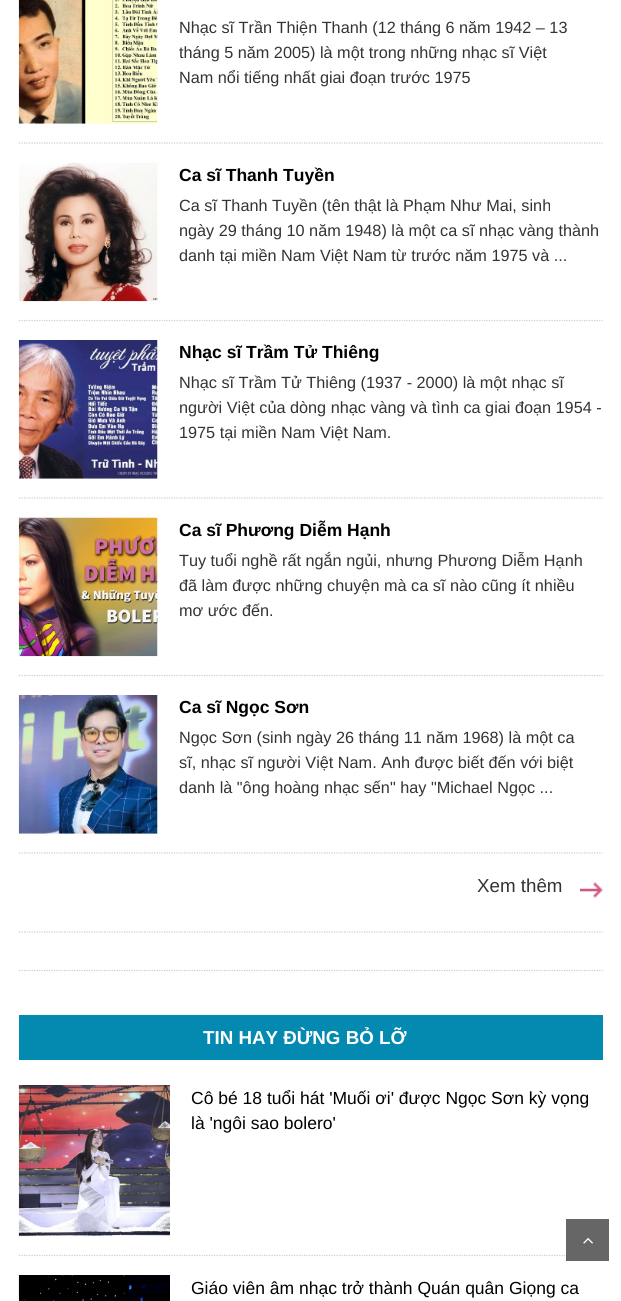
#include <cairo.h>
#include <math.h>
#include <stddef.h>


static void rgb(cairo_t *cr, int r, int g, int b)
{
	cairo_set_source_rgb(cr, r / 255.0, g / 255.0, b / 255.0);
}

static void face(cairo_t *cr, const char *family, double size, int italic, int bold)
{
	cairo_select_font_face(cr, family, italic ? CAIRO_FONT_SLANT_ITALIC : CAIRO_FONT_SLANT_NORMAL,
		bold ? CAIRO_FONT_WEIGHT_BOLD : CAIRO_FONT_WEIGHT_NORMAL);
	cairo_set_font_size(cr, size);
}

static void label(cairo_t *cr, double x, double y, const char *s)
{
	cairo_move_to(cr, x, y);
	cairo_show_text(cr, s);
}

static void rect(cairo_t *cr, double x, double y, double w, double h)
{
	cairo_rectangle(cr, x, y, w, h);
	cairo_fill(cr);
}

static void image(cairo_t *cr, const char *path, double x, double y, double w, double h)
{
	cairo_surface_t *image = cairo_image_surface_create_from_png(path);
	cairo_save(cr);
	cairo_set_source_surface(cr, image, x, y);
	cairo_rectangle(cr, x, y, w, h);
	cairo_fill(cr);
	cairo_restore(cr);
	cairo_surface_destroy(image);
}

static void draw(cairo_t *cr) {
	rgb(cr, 255, 255, 255);
	cairo_paint(cr);
	cairo_new_path(cr);
	cairo_move_to(cr, 19, 143);
	cairo_line_to(cr, 602.5, 143);
	rgb(cr, 204, 204, 204);
	cairo_set_line_width(cr, 1.2);
	cairo_set_dash(cr, (double[]){1.25, 1.25}, 2, 0);
	cairo_stroke(cr);
	image(cr, "image0.png", 18, 0, 140, 124);
	face(cr, "Liberation Sans", 16.25, 0, 0);
	rgb(cr, 51, 51, 51);
	label(cr, 179, 33, "Nhạc sĩ Trần Thiện Thanh (12 tháng 6 năm 1942 – 13");
	label(cr, 179, 58, "tháng 5 năm 2005) là một trong những nhạc sĩ Việt");
	label(cr, 179, 83, "Nam nổi tiếng nhất giai đoạn trước 1975");
	cairo_new_path(cr);
	cairo_move_to(cr, 19, 320.5);
	cairo_line_to(cr, 602.5, 320.5);
	rgb(cr, 204, 204, 204);
	cairo_stroke(cr);
	image(cr, "image1.png", 19, 162, 139, 140);
	face(cr, "Liberation Sans", 17.5, 0, 1);
	rgb(cr, 0, 0, 0);
	label(cr, 179, 181, "Ca sĩ Thanh Tuyền");
	face(cr, "Liberation Sans", 16.25, 0, 0);
	rgb(cr, 51, 51, 51);
	label(cr, 179, 211, "Ca sĩ Thanh Tuyền (tên thật là Phạm Như Mai, sinh");
	label(cr, 179, 236, "ngày 29 tháng 10 năm 1948) là một ca sĩ nhạc vàng thành");
	label(cr, 179, 261, "danh tại miền Nam Việt Nam từ trước năm 1975 và ...");
	cairo_new_path(cr);
	cairo_move_to(cr, 19, 498);
	cairo_line_to(cr, 602.5, 498);
	rgb(cr, 204, 204, 204);
	cairo_stroke(cr);
	image(cr, "image2.png", 18, 340, 140, 139);
	face(cr, "Liberation Sans", 17.5, 0, 1);
	rgb(cr, 0, 0, 0);
	label(cr, 179, 358, "Nhạc sĩ Trầm Tử Thiêng");
	face(cr, "Liberation Sans", 16.25, 0, 0);
	rgb(cr, 51, 51, 51);
	label(cr, 179, 388, "Nhạc sĩ Trầm Tử Thiêng (1937 - 2000) là một nhạc sĩ");
	label(cr, 179, 413, "người Việt của dòng nhạc vàng và tình ca giai đoạn 1954 -");
	label(cr, 179, 438, "1975 tại miền Nam Việt Nam.");
	cairo_new_path(cr);
	cairo_move_to(cr, 19, 675.5);
	cairo_line_to(cr, 602.5, 675.5);
	rgb(cr, 204, 204, 204);
	cairo_stroke(cr);
	image(cr, "image3.png", 18, 517, 140, 140);
	face(cr, "Liberation Sans", 17.5, 0, 1);
	rgb(cr, 0, 0, 0);
	label(cr, 179, 536, "Ca sĩ Phương Diễm Hạnh");
	face(cr, "Liberation Sans", 16.25, 0, 0);
	rgb(cr, 51, 51, 51);
	label(cr, 179, 566, "Tuy tuổi nghề rất ngắn ngủi, nhưng Phương Diễm Hạnh");
	label(cr, 179, 591, "đã làm được những chuyện mà ca sĩ nào cũng ít nhiều");
	label(cr, 179, 616, "mơ ước đến.");
	cairo_new_path(cr);
	cairo_move_to(cr, 19, 853);
	cairo_line_to(cr, 602.5, 853);
	rgb(cr, 204, 204, 204);
	cairo_stroke(cr);
	image(cr, "image4.png", 18, 695, 140, 139);
	face(cr, "Liberation Sans", 17.5, 0, 1);
	rgb(cr, 0, 0, 0);
	label(cr, 179, 713, "Ca sĩ Ngọc Sơn");
	face(cr, "Liberation Sans", 16.25, 0, 0);
	rgb(cr, 51, 51, 51);
	label(cr, 179, 743, "Ngọc Sơn (sinh ngày 26 tháng 11 năm 1968) là một ca");
	label(cr, 179, 768, "sĩ, nhạc sĩ người Việt Nam. Anh được biết đến với biệt");
	label(cr, 179, 793, "danh là \"ông hoàng nhạc sến\" hay \"Michael Ngọc ...");
	face(cr, "Liberation Sans", 18.75, 0, 0);
	label(cr, 477, 892, "Xem thêm");
	image(cr, "image5.png", 580, 882, 23, 16);
	cairo_new_path(cr);
	cairo_move_to(cr, 19, 932);
	cairo_line_to(cr, 602.5, 932);
	rgb(cr, 204, 204, 204);
	cairo_stroke(cr);
	cairo_new_path(cr);
	cairo_move_to(cr, 19, 970.5);
	cairo_line_to(cr, 602.5, 970.5);
	cairo_stroke(cr);
	rgb(cr, 4, 137, 177);
	rect(cr, 19, 1015, 584, 45);
	face(cr, "Liberation Sans", 18.75, 0, 1);
	rgb(cr, 255, 255, 255);
	label(cr, 203, 1044, "TIN HAY ĐỪNG BỎ LỠ");
	cairo_new_path(cr);
	cairo_move_to(cr, 19, 1255.5);
	cairo_line_to(cr, 602.5, 1255.5);
	rgb(cr, 204, 204, 204);
	cairo_stroke(cr);
	image(cr, "image6.png", 18, 1085, 152, 152);
	face(cr, "Liberation Sans", 17.5, 0, 0);
	rgb(cr, 0, 0, 0);
	label(cr, 191, 1104, "Cô bé 18 tuổi hát 'Muối ơi' được Ngọc Sơn kỳ vọng");
	label(cr, 191, 1129, "là 'ngôi sao bolero'");
	image(cr, "image7.png", 18, 1275, 152, 26);
	label(cr, 191, 1294, "Giáo viên âm nhạc trở thành Quán quân Giọng ca");
	rgb(cr, 102, 102, 102);
	rect(cr, 566, 1219, 43, 42);
	image(cr, "image8.png", 583, 1238, 10, 6);
}

int main(void) {
	cairo_surface_t *surface = cairo_image_surface_create(CAIRO_FORMAT_RGB24, 621, 1301);
	cairo_t *cr = cairo_create(surface);
	cairo_font_options_t *options = cairo_font_options_create();
	cairo_font_options_set_hint_metrics(options, CAIRO_HINT_METRICS_OFF);
	cairo_font_options_set_hint_style(options, CAIRO_HINT_STYLE_NONE);
	cairo_set_font_options(cr, options);
	cairo_set_miter_limit(cr, 4);
	draw(cr);
	cairo_surface_write_to_png(surface, "render.png");
	cairo_font_options_destroy(options);
	cairo_destroy(cr);
	cairo_surface_destroy(surface);
	return 0;
}
